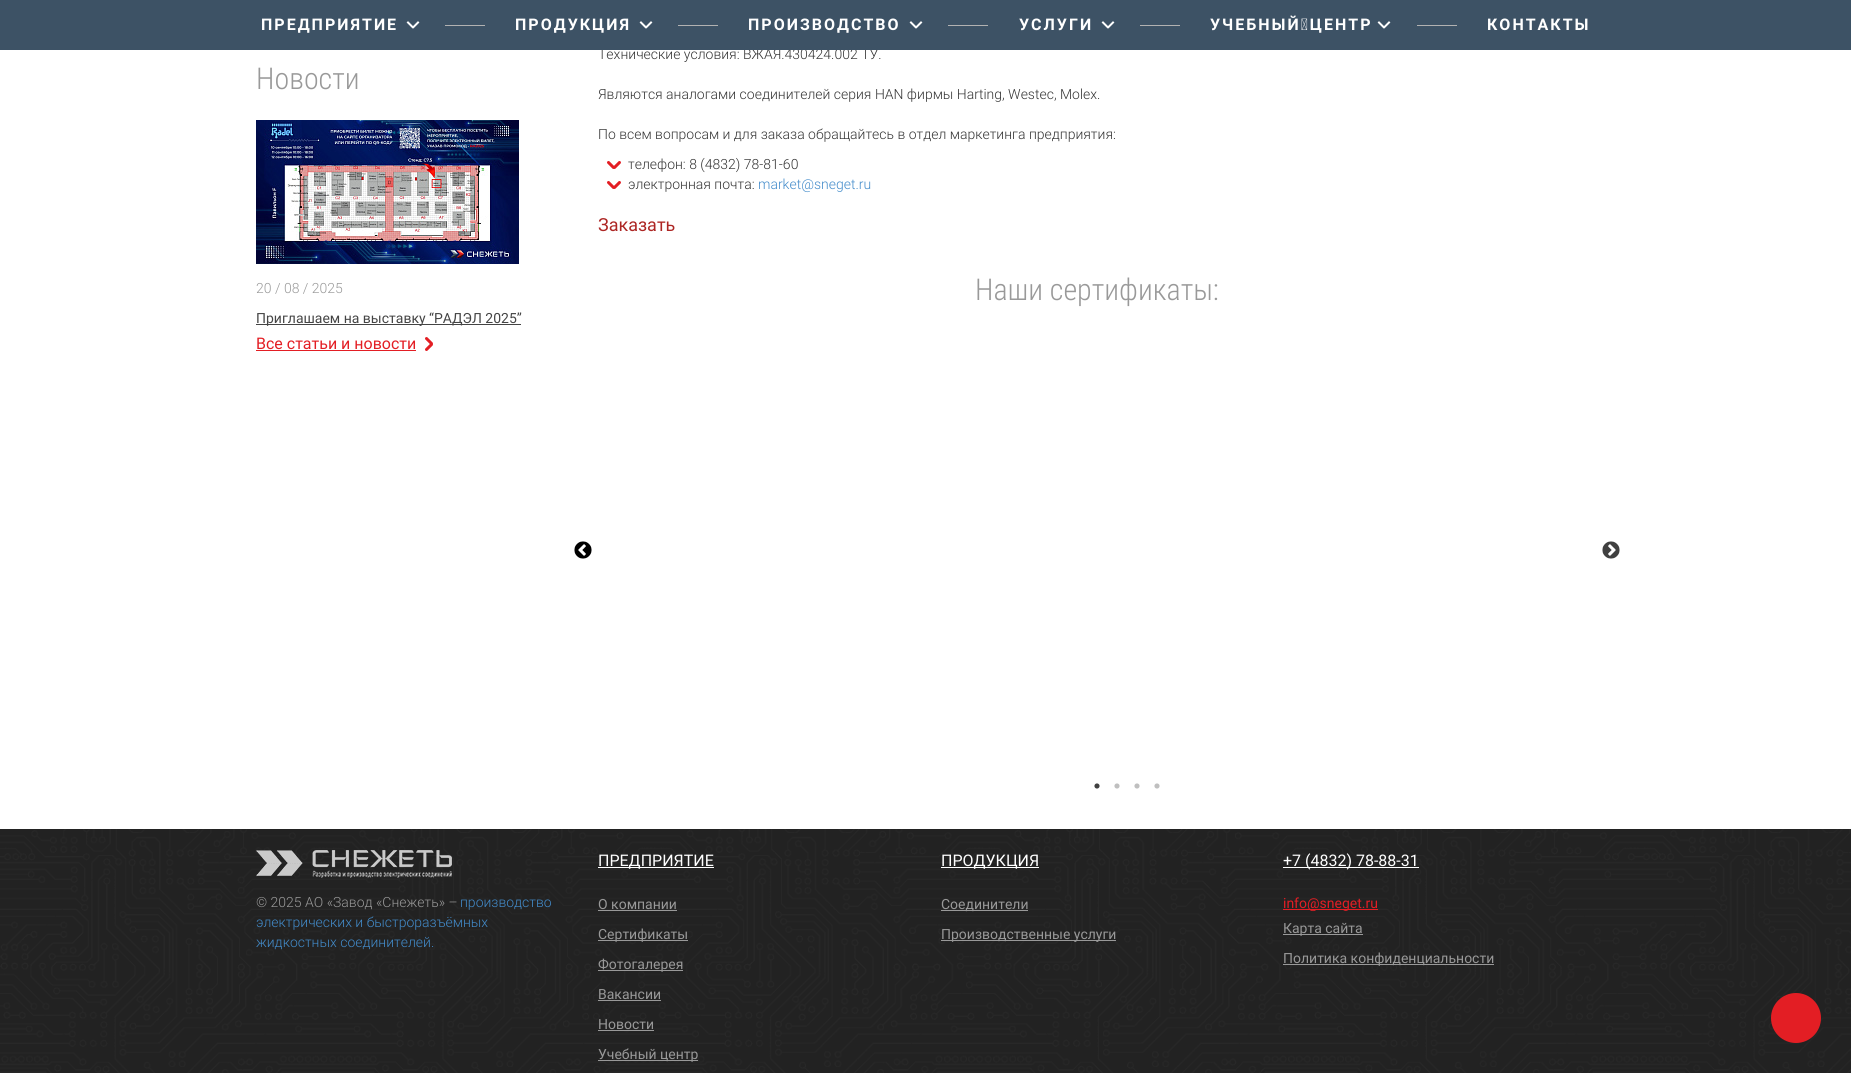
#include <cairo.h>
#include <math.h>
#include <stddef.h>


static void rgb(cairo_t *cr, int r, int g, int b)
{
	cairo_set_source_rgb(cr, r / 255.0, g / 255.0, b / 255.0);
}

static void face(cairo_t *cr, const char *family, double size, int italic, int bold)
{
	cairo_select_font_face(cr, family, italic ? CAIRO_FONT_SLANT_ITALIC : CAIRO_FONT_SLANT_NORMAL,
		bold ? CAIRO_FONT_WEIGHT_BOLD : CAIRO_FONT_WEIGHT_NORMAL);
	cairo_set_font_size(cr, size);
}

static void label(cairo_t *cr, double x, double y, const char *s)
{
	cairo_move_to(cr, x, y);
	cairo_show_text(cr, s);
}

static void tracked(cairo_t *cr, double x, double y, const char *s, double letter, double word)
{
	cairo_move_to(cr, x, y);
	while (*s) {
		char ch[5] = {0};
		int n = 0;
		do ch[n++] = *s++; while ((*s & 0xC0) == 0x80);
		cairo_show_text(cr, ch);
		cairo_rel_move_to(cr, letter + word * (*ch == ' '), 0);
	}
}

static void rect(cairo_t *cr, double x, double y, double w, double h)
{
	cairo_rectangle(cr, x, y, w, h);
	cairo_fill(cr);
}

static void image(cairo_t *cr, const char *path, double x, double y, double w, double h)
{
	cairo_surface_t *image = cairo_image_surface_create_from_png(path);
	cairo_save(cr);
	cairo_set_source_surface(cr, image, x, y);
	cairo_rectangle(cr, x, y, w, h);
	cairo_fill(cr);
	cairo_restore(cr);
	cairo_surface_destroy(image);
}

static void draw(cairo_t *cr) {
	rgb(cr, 255, 255, 255);
	cairo_paint(cr);
	face(cr, "Roboto Light", 14, 0, 0);
	rgb(cr, 51, 51, 51);
	label(cr, 598, 59, "Технические условия: ВЖАЯ.430424.002 ТУ.");
	rgb(cr, 61, 82, 101);
	rect(cr, 0, 0, 1851, 50);
	face(cr, "Roboto", 16, 0, 1);
	rgb(cr, 255, 255, 255);
	tracked(cr, 261, 30, "ПРЕДПРИЯТИЕ", 2, 0);
	cairo_new_path(cr);
	cairo_move_to(cr, 418, 22.5);
	cairo_line_to(cr, 413, 27.5);
	cairo_line_to(cr, 408, 22.5);
	cairo_set_line_cap(cr, CAIRO_LINE_CAP_SQUARE);
	cairo_set_line_join(cr, CAIRO_LINE_JOIN_ROUND);
	cairo_stroke(cr);
	rgb(cr, 178, 178, 178);
	rect(cr, 445, 25, 40, 1);
	rgb(cr, 255, 255, 255);
	tracked(cr, 515, 30, "ПРОДУКЦИЯ", 2, 0);
	cairo_new_path(cr);
	cairo_move_to(cr, 651, 22.5);
	cairo_line_to(cr, 646, 27.5);
	cairo_line_to(cr, 641, 22.5);
	cairo_stroke(cr);
	rgb(cr, 178, 178, 178);
	rect(cr, 678, 25, 40, 1);
	rgb(cr, 255, 255, 255);
	tracked(cr, 748, 30, "ПРОИЗВОДСТВО", 2, 0);
	cairo_new_path(cr);
	cairo_move_to(cr, 921, 22.5);
	cairo_line_to(cr, 916, 27.5);
	cairo_line_to(cr, 911, 22.5);
	cairo_stroke(cr);
	rgb(cr, 178, 178, 178);
	rect(cr, 948, 25, 40, 1);
	rgb(cr, 255, 255, 255);
	tracked(cr, 1019, 30, "УСЛУГИ", 2, 0);
	cairo_new_path(cr);
	cairo_move_to(cr, 1113, 22.5);
	cairo_line_to(cr, 1108, 27.5);
	cairo_line_to(cr, 1103, 22.5);
	cairo_stroke(cr);
	rgb(cr, 178, 178, 178);
	rect(cr, 1140, 25, 40, 1);
	rgb(cr, 255, 255, 255);
	tracked(cr, 1210, 30, "УЧЕБНЫЙ ЦЕНТР", 2, 0);
	cairo_new_path(cr);
	cairo_move_to(cr, 1389, 22.5);
	cairo_line_to(cr, 1384, 27.5);
	cairo_line_to(cr, 1379, 22.5);
	cairo_stroke(cr);
	rgb(cr, 178, 178, 178);
	rect(cr, 1417, 25, 40, 1);
	rgb(cr, 255, 255, 255);
	tracked(cr, 1487, 30, "КОНТАКТЫ", 2, 0);
	face(cr, "Roboto Condensed Light", 30, 0, 0);
	rgb(cr, 153, 153, 153);
	label(cr, 256, 89, "Новости");
	image(cr, "image0.png", 256, 120, 263, 144);
	face(cr, "Roboto Light", 14, 0, 0);
	label(cr, 256, 293, "20 / 08 / 2025");
	rgb(cr, 68, 68, 68);
	rect(cr, 256, 324, 265, 1);
	face(cr, "Roboto", 14, 0, 0);
	label(cr, 256, 323, "Приглашаем на выставку “РАДЭЛ 2025”");
	face(cr, "Roboto", 16, 0, 0);
	rgb(cr, 227, 30, 36);
	label(cr, 256, 349, "Все статьи и новости");
	rect(cr, 256, 350, 160, 1);
	image(cr, "image1.png", 425, 337, 8, 14);
	face(cr, "Roboto Light", 14, 0, 0);
	rgb(cr, 51, 51, 51);
	label(cr, 598, 99, "Являются аналогами соединителей серия HAN фирмы Harting, Westec, Molex.");
	label(cr, 598, 139, "По всем вопросам и для заказа обращайтесь в отдел маркетинга предприятия:");
	image(cr, "image2.png", 607, 161, 14, 8);
	label(cr, 628, 169, "телефон: 8 (4832) 78-81-60");
	image(cr, "image2.png", 607, 181, 14, 8);
	label(cr, 628, 189, "электронная почта:");
	rgb(cr, 66, 139, 202);
	label(cr, 758, 189, "market@sneget.ru");
	face(cr, "Roboto", 18, 0, 0);
	rgb(cr, 173, 38, 36);
	label(cr, 598, 231, "Заказать");
	face(cr, "Roboto Condensed Light", 30, 0, 0);
	rgb(cr, 153, 153, 153);
	label(cr, 975, 300, "Наши сертификаты:");
	image(cr, "image3.png", 574, 541, 18, 18);
	image(cr, "image4.png", 1602, 541, 18, 18);
	image(cr, "image5.png", 1094, 783, 6, 6);
	image(cr, "image6.png", 1114, 783, 6, 6);
	image(cr, "image6.png", 1134, 783, 6, 6);
	image(cr, "image6.png", 1154, 783, 6, 6);
	image(cr, "image7.png", 0, 829, 1851, 244);
	image(cr, "image8.png", 256, 850, 196, 28);
	face(cr, "Roboto Light", 14, 0, 0);
	label(cr, 256, 907, "© 2025 АО «Завод «Снежеть» –");
	rgb(cr, 66, 139, 202);
	label(cr, 460, 907, "производство");
	label(cr, 256, 927, "электрических и быстроразъёмных");
	label(cr, 256, 947, "жидкостных соединителей.");
	rgb(cr, 255, 255, 255);
	rect(cr, 598, 867, 116, 1);
	face(cr, "Roboto", 16, 0, 0);
	label(cr, 598, 866, "ПРЕДПРИЯТИЕ");
	face(cr, "Roboto", 14, 0, 0);
	rgb(cr, 153, 153, 153);
	label(cr, 598, 909, "О компании");
	rect(cr, 598, 910, 79, 1);
	rect(cr, 598, 940, 90, 1);
	label(cr, 598, 939, "Сертификаты");
	rect(cr, 598, 970, 85, 1);
	label(cr, 598, 969, "Фотогалерея");
	label(cr, 598, 999, "Вакансии");
	rect(cr, 598, 1000, 63, 1);
	label(cr, 598, 1029, "Новости");
	rect(cr, 598, 1030, 56, 1);
	rect(cr, 598, 1060, 100, 1);
	label(cr, 598, 1059, "Учебный центр");
	rgb(cr, 255, 255, 255);
	rect(cr, 941, 867, 98, 1);
	face(cr, "Roboto", 16, 0, 0);
	label(cr, 941, 866, "ПРОДУКЦИЯ");
	rgb(cr, 153, 153, 153);
	rect(cr, 941, 910, 87, 1);
	face(cr, "Roboto", 14, 0, 0);
	label(cr, 941, 909, "Соединители");
	rect(cr, 941, 940, 175, 1);
	label(cr, 941, 939, "Производственные услуги");
	rgb(cr, 255, 255, 255);
	rect(cr, 1283, 867, 136, 1);
	face(cr, "Roboto", 16, 0, 0);
	label(cr, 1283, 866, "+7 (4832) 78-88-31");
	rgb(cr, 227, 30, 36);
	rect(cr, 1283, 909, 95, 1);
	face(cr, "Roboto", 14, 0, 0);
	label(cr, 1283, 908, "info@sneget.ru");
	rgb(cr, 153, 153, 153);
	rect(cr, 1283, 934, 80, 1);
	label(cr, 1283, 933, "Карта сайта");
	rect(cr, 1283, 964, 211, 1);
	label(cr, 1283, 963, "Политика конфиденциальности");
	rgb(cr, 227, 30, 36);
	cairo_new_path(cr);
	cairo_arc(cr, 1796, 1018, 25, 0, 2 * M_PI);
	cairo_fill(cr);
}

int main(void) {
	cairo_surface_t *surface = cairo_image_surface_create(CAIRO_FORMAT_RGB24, 1851, 1073);
	cairo_t *cr = cairo_create(surface);
	cairo_font_options_t *options = cairo_font_options_create();
	cairo_font_options_set_hint_metrics(options, CAIRO_HINT_METRICS_OFF);
	cairo_font_options_set_hint_style(options, CAIRO_HINT_STYLE_NONE);
	cairo_set_font_options(cr, options);
	cairo_set_miter_limit(cr, 4);
	draw(cr);
	cairo_surface_write_to_png(surface, "render.png");
	cairo_font_options_destroy(options);
	cairo_destroy(cr);
	cairo_surface_destroy(surface);
	return 0;
}
